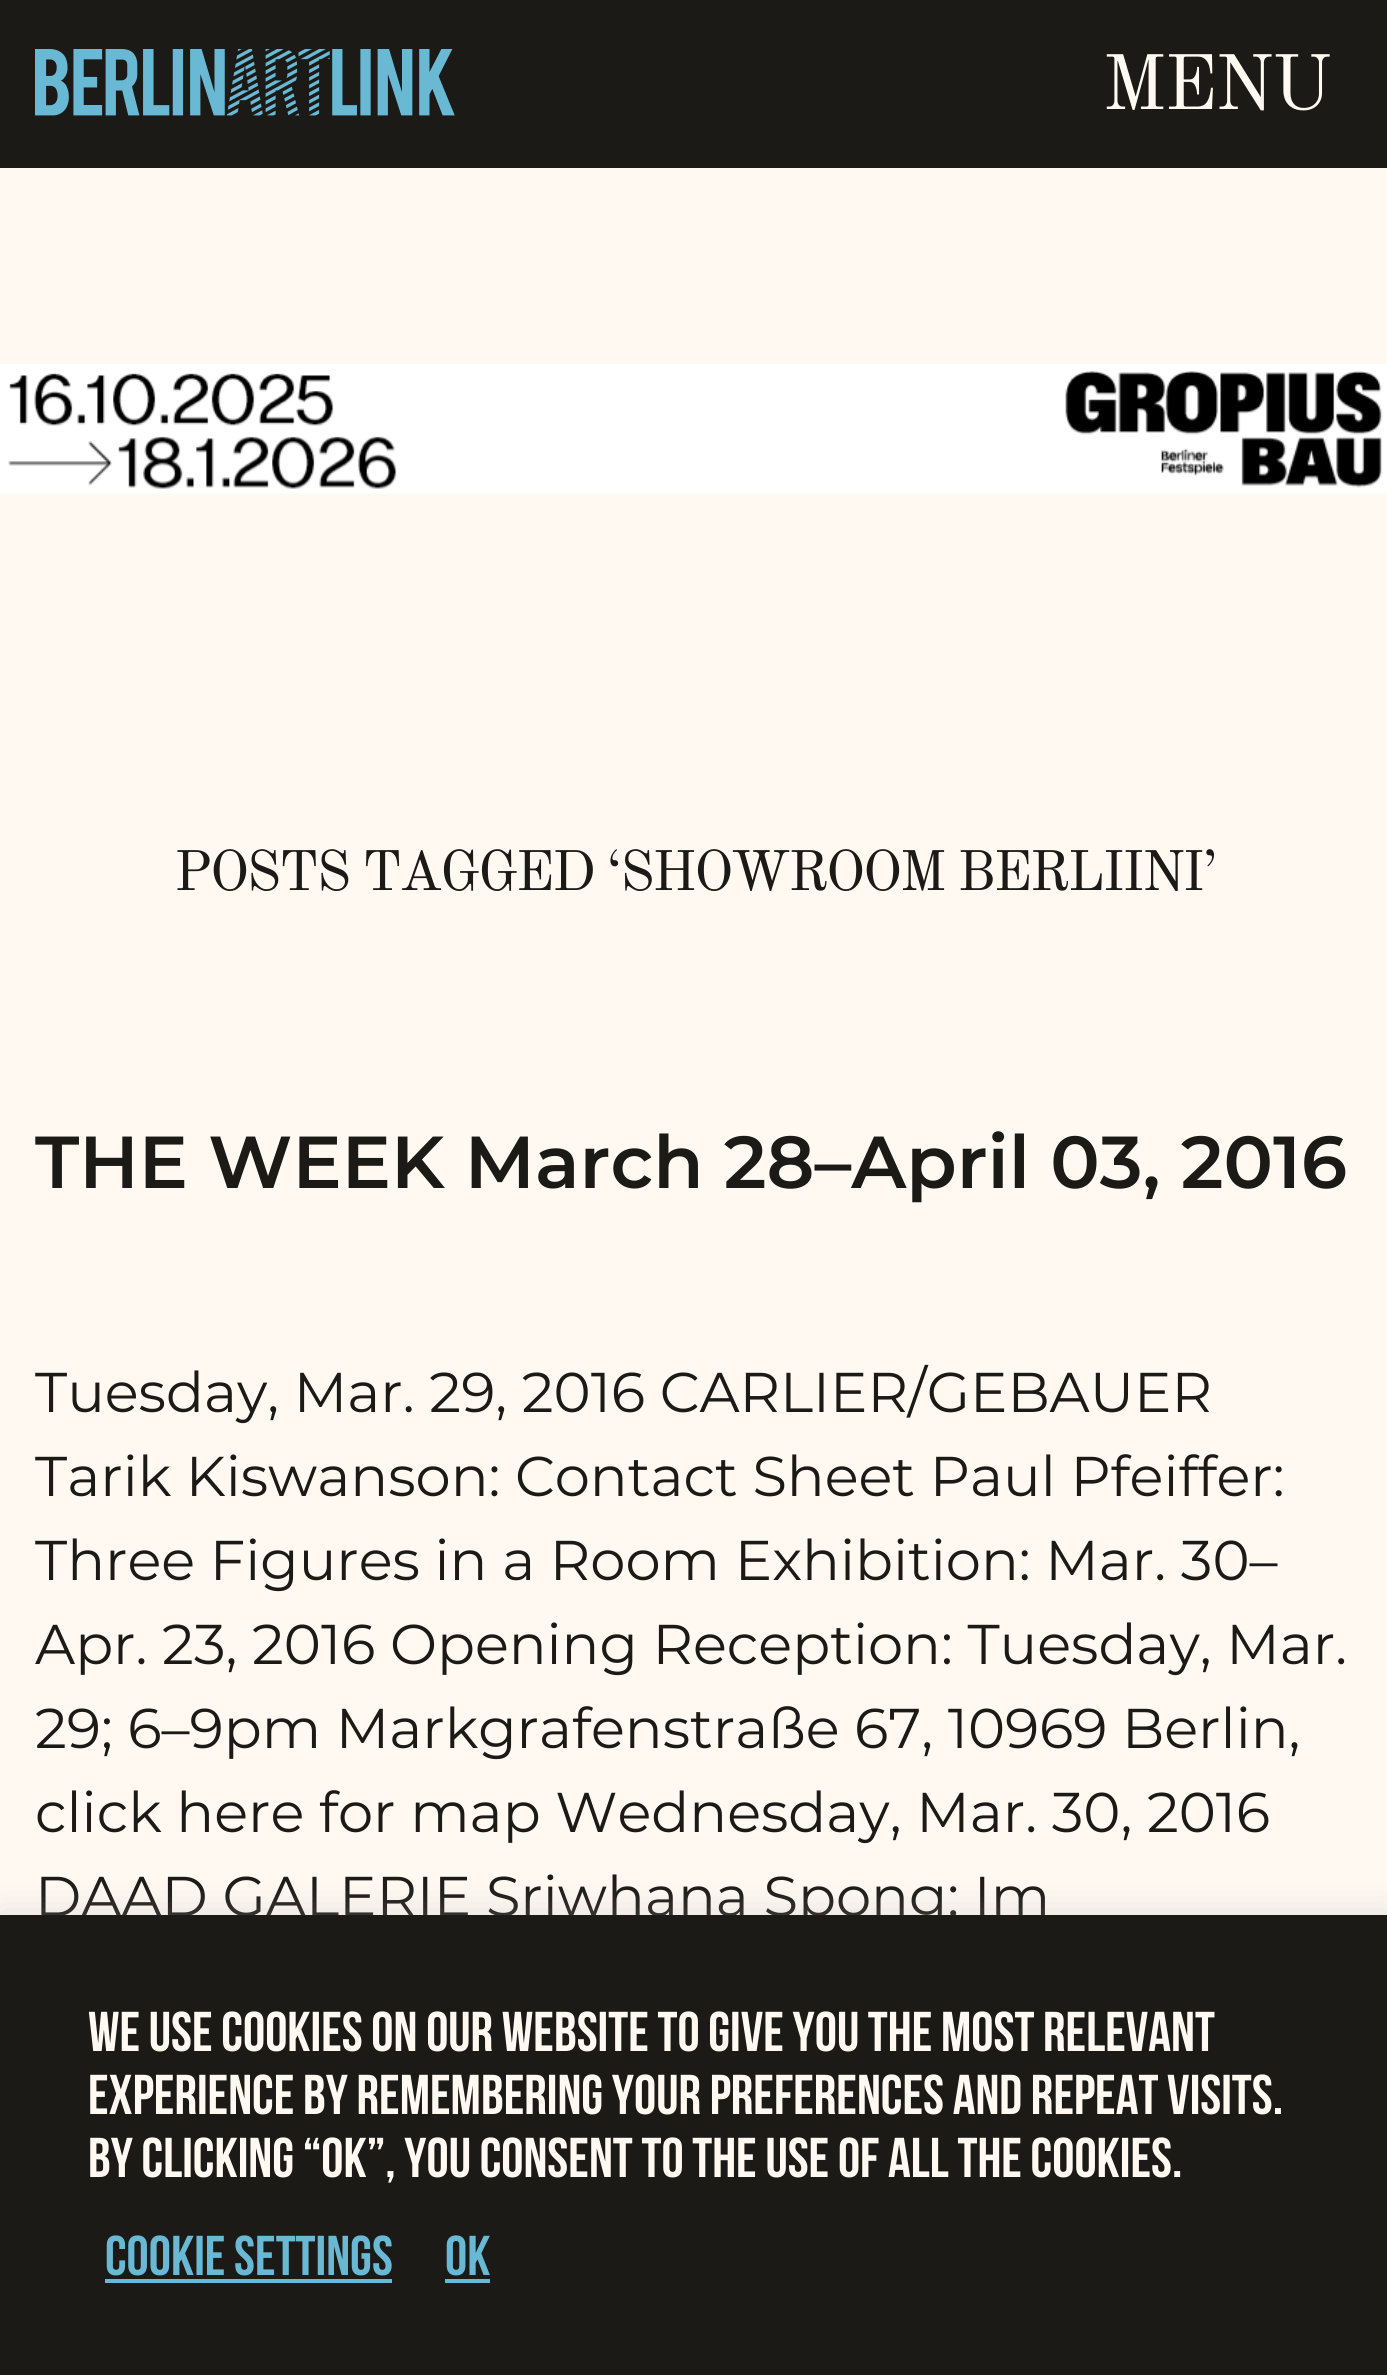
#include <cairo.h>
#include <math.h>
#include <stddef.h>


static void rgb(cairo_t *cr, int r, int g, int b)
{
	cairo_set_source_rgb(cr, r / 255.0, g / 255.0, b / 255.0);
}

static void face(cairo_t *cr, const char *family, double size, int italic, int bold)
{
	cairo_select_font_face(cr, family, italic ? CAIRO_FONT_SLANT_ITALIC : CAIRO_FONT_SLANT_NORMAL,
		bold ? CAIRO_FONT_WEIGHT_BOLD : CAIRO_FONT_WEIGHT_NORMAL);
	cairo_set_font_size(cr, size);
}

static void label(cairo_t *cr, double x, double y, const char *s)
{
	cairo_move_to(cr, x, y);
	cairo_show_text(cr, s);
}

static void tracked(cairo_t *cr, double x, double y, const char *s, double letter, double word)
{
	cairo_move_to(cr, x, y);
	while (*s) {
		char ch[5] = {0};
		int n = 0;
		do ch[n++] = *s++; while ((*s & 0xC0) == 0x80);
		cairo_show_text(cr, ch);
		cairo_rel_move_to(cr, letter + word * (*ch == ' '), 0);
	}
}

static void rect(cairo_t *cr, double x, double y, double w, double h)
{
	cairo_rectangle(cr, x, y, w, h);
	cairo_fill(cr);
}

static void rrect(cairo_t *cr, double x, double y, double w, double h, double r)
{
	cairo_new_sub_path(cr);
	cairo_arc(cr, x + w - r, y + h - r, r, 0, M_PI / 2);
	cairo_arc(cr, x + r, y + h - r, r, M_PI / 2, M_PI);
	cairo_arc(cr, x + r, y + r, r, M_PI, 1.5 * M_PI);
	cairo_arc(cr, x + w - r, y + r, r, 1.5 * M_PI, 2 * M_PI);
	cairo_close_path(cr);
}

static void soft_shadow(cairo_t *cr, double x, double y, double w, double h, double r, double blur, double alpha)
{
	cairo_push_group_with_content(cr, CAIRO_CONTENT_ALPHA);
	cairo_set_operator(cr, CAIRO_OPERATOR_SOURCE);
	for (int i = 15; i >= -15 && fmin(w, h) + blur * i / 3 > 0; i -= 2) {
		double e = blur * i / 6;
		cairo_set_source_rgba(cr, 0, 0, 0, alpha * erfc((i - 1) / 8.5) / 2);
		rrect(cr, x - e, y - e, w + 2 * e, h + 2 * e, fmax(0, fmin(r + e + blur * .6, fmin(w, h) / 2 + e)));
		cairo_fill(cr);
	}
	cairo_pattern_t *soft = cairo_pop_group(cr);
	cairo_mask(cr, soft);
	cairo_pattern_destroy(soft);
}

static void image(cairo_t *cr, const char *path, double x, double y, double w, double h)
{
	cairo_surface_t *image = cairo_image_surface_create_from_png(path);
	cairo_save(cr);
	cairo_set_source_surface(cr, image, x, y);
	cairo_rectangle(cr, x, y, w, h);
	cairo_fill(cr);
	cairo_restore(cr);
	cairo_surface_destroy(image);
}

static void draw(cairo_t *cr) {
	rgb(cr, 255, 249, 242);
	cairo_paint(cr);
	rgb(cr, 28, 26, 23);
	rect(cr, 0, 0, 1387, 168);
	image(cr, "image0.png", 35, 49, 420, 67);
	face(cr, "Old Standard TT", 77, 0, 0);
	rgb(cr, 255, 249, 242);
	tracked(cr, 1102, 109, "MENU", -2.4, 0);
	image(cr, "image1.png", 0, 364, 1387, 130);
	face(cr, "Old Standard TT", 56, 0, 0);
	rgb(cr, 28, 26, 23);
	tracked(cr, 174, 890, "POSTS TAGGED ‘SHOWROOM BERLIINI’", -2.4, 0);
	face(cr, "Montserrat SemiBold", 73.5, 0, 0);
	label(cr, 35, 1188, "THE WEEK March 28–April 03, 2016");
	face(cr, "Montserrat", 56, 0, 0);
	label(cr, 35, 1412, "Tuesday, Mar. 29, 2016 CARLIER/GEBAUER");
	label(cr, 35, 1496, "Tarik Kiswanson: Contact Sheet Paul Pfeiffer:");
	label(cr, 35, 1580, "Three Figures in a Room Exhibition: Mar. 30–");
	label(cr, 35, 1664, "Apr. 23, 2016 Opening Reception: Tuesday, Mar.");
	label(cr, 35, 1748, "29; 6–9pm Markgrafenstraße 67, 10969 Berlin,");
	label(cr, 35, 1832, "click here for map Wednesday, Mar. 30, 2016");
	label(cr, 35, 1916, "DAAD GALERIE Sriwhana Spong: Im");
	rgb(cr, 172, 171, 171);
	soft_shadow(cr, 0, 1911, 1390, 462, 0, 17.5, 0.3);
	rgb(cr, 28, 26, 23);
	rect(cr, 0, 1915, 1387, 460);
	face(cr, "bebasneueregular", 56, 0, 0);
	rgb(cr, 255, 249, 242);
	label(cr, 88, 2051, "WE USE COOKIES ON OUR WEBSITE TO GIVE YOU THE MOST RELEVANT");
	label(cr, 88, 2114, "EXPERIENCE BY REMEMBERING YOUR PREFERENCES AND REPEAT VISITS.");
	label(cr, 88, 2177, "BY CLICKING “OK”, YOU CONSENT TO THE USE OF ALL THE COOKIES.");
	rgb(cr, 105, 185, 213);
	label(cr, 105, 2275, "COOKIE SETTINGS");
	rect(cr, 105, 2279, 287, 4);
	label(cr, 445, 2275, "OK");
	rect(cr, 445, 2279, 45, 4);
}

int main(void) {
	cairo_surface_t *surface = cairo_image_surface_create(CAIRO_FORMAT_RGB24, 1387, 2375);
	cairo_t *cr = cairo_create(surface);
	cairo_font_options_t *options = cairo_font_options_create();
	cairo_font_options_set_hint_metrics(options, CAIRO_HINT_METRICS_OFF);
	cairo_font_options_set_hint_style(options, CAIRO_HINT_STYLE_NONE);
	cairo_set_font_options(cr, options);
	cairo_set_miter_limit(cr, 4);
	draw(cr);
	cairo_surface_write_to_png(surface, "render.png");
	cairo_font_options_destroy(options);
	cairo_destroy(cr);
	cairo_surface_destroy(surface);
	return 0;
}
